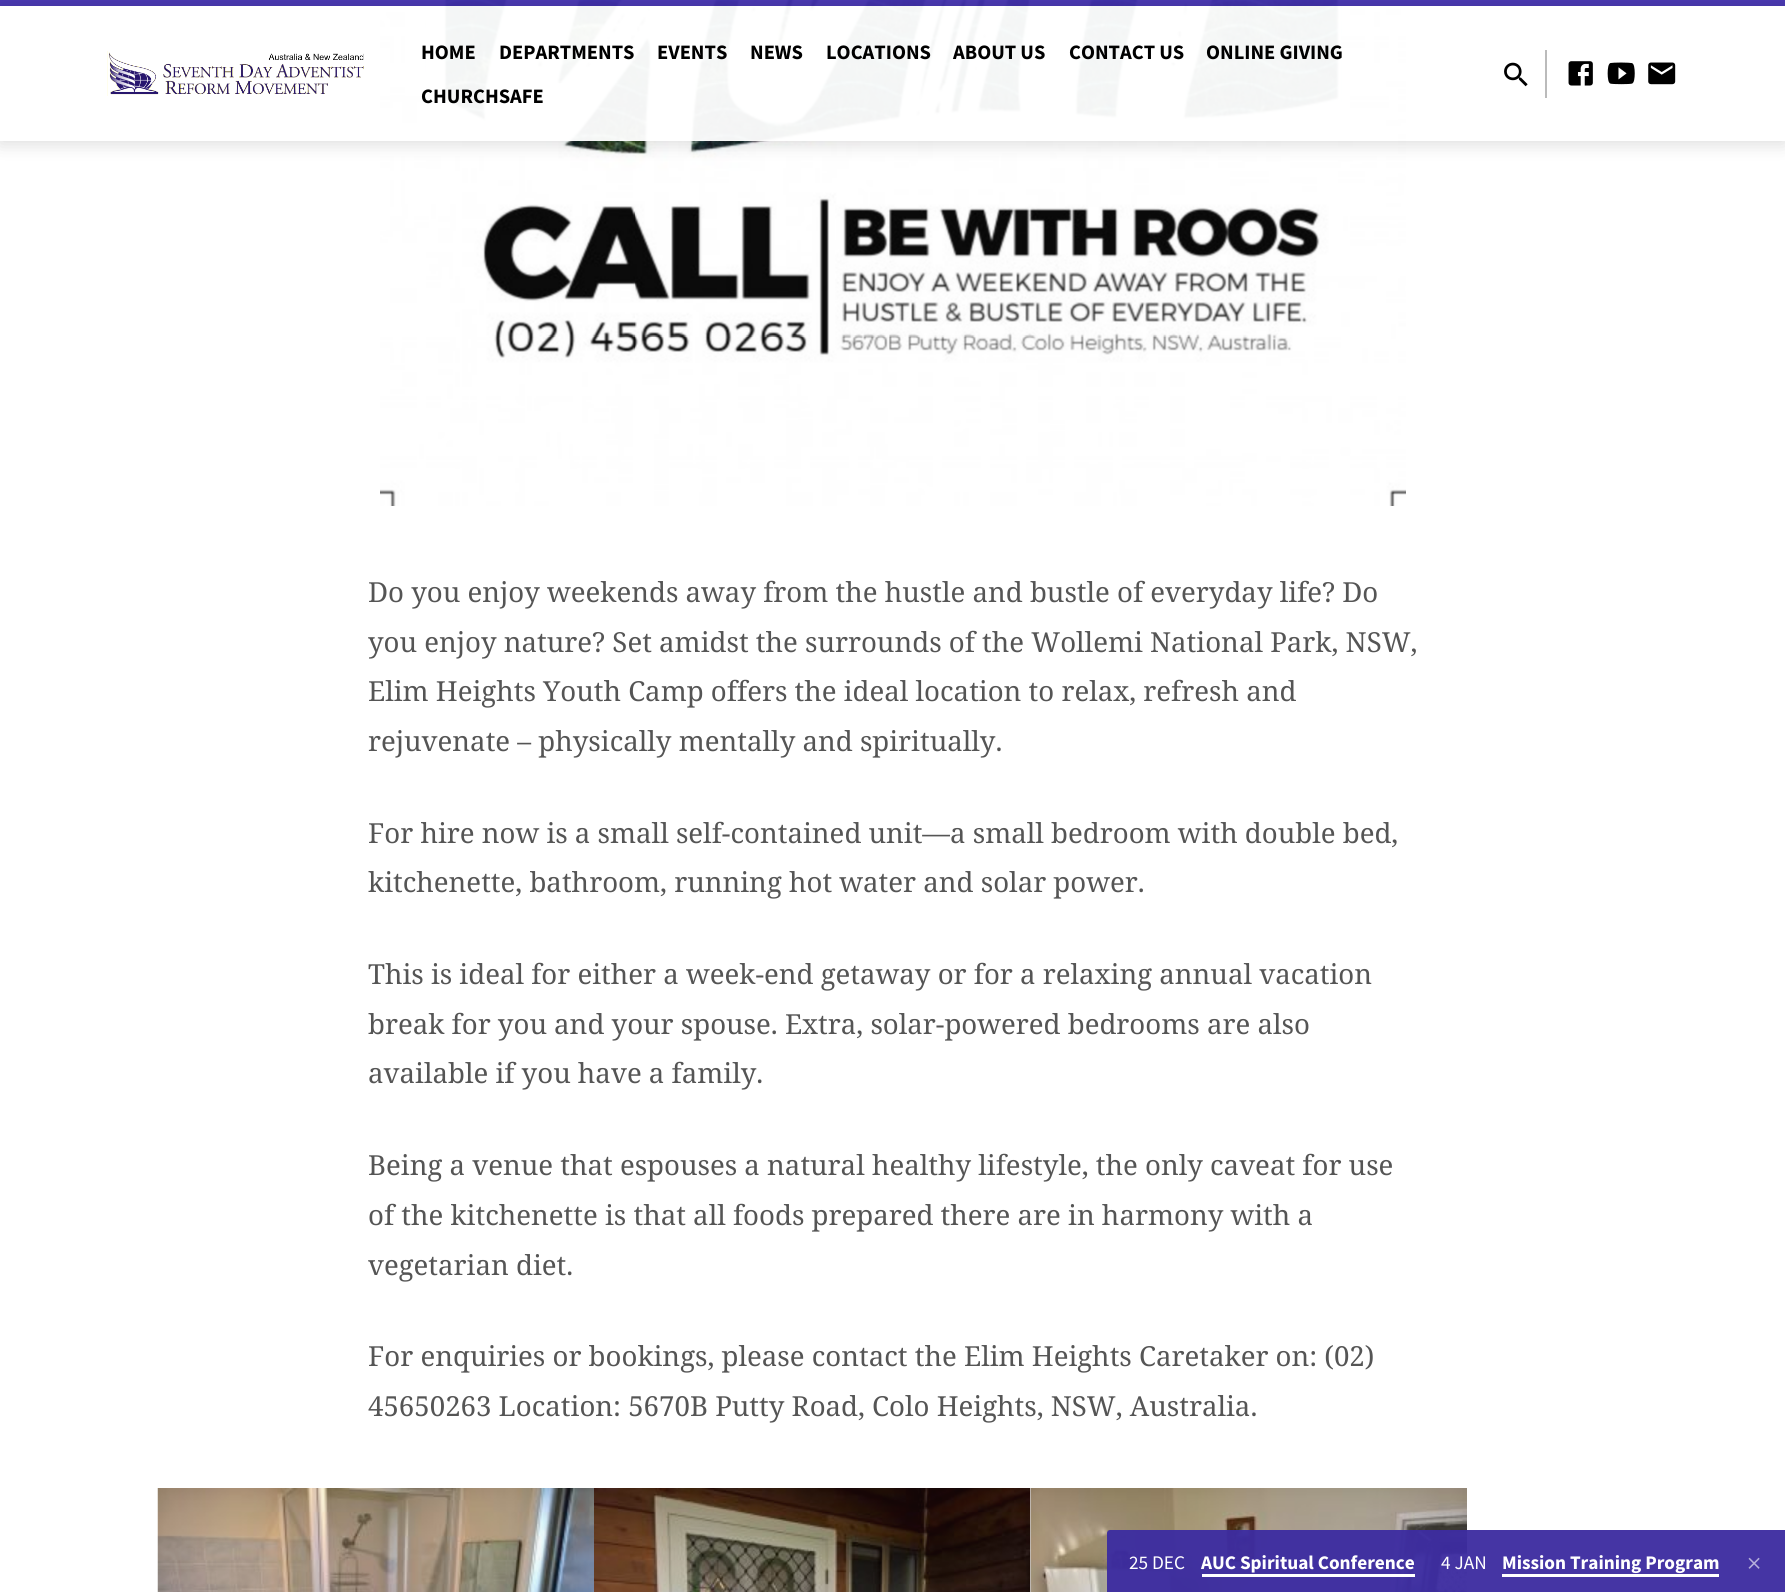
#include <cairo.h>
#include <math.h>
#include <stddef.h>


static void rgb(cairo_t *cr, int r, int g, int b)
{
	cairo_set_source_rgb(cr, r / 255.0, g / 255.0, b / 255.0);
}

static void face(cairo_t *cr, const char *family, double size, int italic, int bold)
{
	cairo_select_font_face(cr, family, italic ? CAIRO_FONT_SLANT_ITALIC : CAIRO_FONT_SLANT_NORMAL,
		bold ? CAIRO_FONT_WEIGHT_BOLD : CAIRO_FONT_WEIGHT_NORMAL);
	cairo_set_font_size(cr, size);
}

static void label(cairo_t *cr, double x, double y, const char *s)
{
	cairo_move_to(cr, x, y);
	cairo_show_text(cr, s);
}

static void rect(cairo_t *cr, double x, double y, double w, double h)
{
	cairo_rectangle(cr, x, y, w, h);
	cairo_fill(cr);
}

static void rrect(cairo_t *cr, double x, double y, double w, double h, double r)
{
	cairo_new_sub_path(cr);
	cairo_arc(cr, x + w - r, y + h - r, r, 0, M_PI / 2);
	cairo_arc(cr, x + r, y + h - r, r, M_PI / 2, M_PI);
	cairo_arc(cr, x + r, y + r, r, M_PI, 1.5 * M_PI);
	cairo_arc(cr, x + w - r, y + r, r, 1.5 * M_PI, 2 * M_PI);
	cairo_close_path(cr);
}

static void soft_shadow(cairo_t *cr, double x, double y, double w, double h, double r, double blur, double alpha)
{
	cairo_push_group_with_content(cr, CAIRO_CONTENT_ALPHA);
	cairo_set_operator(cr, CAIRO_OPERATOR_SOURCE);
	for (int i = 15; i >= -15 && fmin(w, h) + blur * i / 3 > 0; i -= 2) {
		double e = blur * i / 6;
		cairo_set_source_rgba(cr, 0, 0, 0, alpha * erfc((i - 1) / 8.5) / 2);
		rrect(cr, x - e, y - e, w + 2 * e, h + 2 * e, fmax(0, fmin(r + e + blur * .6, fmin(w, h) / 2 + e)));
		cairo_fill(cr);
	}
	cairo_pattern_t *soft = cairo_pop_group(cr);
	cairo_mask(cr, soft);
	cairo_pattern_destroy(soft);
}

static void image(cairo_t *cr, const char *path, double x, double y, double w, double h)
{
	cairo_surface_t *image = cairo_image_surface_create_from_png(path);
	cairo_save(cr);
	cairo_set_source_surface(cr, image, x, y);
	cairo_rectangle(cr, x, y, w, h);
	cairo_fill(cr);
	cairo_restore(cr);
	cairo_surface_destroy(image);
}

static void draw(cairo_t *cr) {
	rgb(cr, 255, 255, 255);
	cairo_paint(cr);
	image(cr, "image5.png", 380, 0, 1026, 506);
	cairo_set_source_rgba(cr, 0.255, 0.188, 0.678, 0.95);
	rect(cr, 0, 0, 1785, 6);
	cairo_set_source_rgba(cr, 1, 1, 1, 0.95);
	rect(cr, 426, 6, 915, 135);
	cairo_save(cr);
	cairo_set_fill_rule(cr, CAIRO_FILL_RULE_EVEN_ODD);
	cairo_new_path(cr);
	cairo_move_to(cr, 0, 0);
	cairo_line_to(cr, 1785, 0);
	cairo_line_to(cr, 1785, 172);
	cairo_line_to(cr, 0, 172);
	cairo_close_path(cr);
	cairo_move_to(cr, 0, 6);
	cairo_line_to(cr, 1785, 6);
	cairo_line_to(cr, 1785, 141);
	cairo_line_to(cr, 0, 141);
	cairo_close_path(cr);
	cairo_clip(cr);
	rgb(cr, 0, 0, 0);
	soft_shadow(cr, 0, 9, 1785, 135, 0, 9, 0.14);
	cairo_restore(cr);
	image(cr, "image0.png", 107, 51, 257, 45);
	face(cr, "Source Sans Pro", 20.5, 0, 1);
	rgb(cr, 0, 0, 0);
	label(cr, 421, 59, "HOME");
	label(cr, 499, 59, "DEPARTMENTS");
	label(cr, 657, 59, "EVENTS");
	label(cr, 750, 59, "NEWS");
	label(cr, 826, 59, "LOCATIONS");
	label(cr, 953, 59, "ABOUT US");
	label(cr, 1069, 59, "CONTACT US");
	label(cr, 1206, 59, "ONLINE GIVING");
	label(cr, 421, 103, "CHURCHSAFE");
	image(cr, "image1.png", 1504, 62, 24, 25);
	rgb(cr, 187, 187, 187);
	rect(cr, 1545, 50, 2, 48);
	image(cr, "image2.png", 1568, 61, 25, 25);
	image(cr, "image3.png", 1607, 62, 28, 23);
	image(cr, "image4.png", 1648, 62, 28, 23);
	face(cr, "Noto Serif", 27.6, 0, 0);
	rgb(cr, 85, 85, 85);
	label(cr, 368, 602, "Do you enjoy weekends away from the hustle and bustle of everyday life? Do");
	label(cr, 368, 652, "you enjoy nature? Set amidst the surrounds of the Wollemi National Park, NSW,");
	label(cr, 368, 701, "Elim Heights Youth Camp offers the ideal location to relax, refresh and");
	label(cr, 368, 751, "rejuvenate – physically mentally and spiritually.");
	label(cr, 368, 843, "For hire now is a small self-contained unit—a small bedroom with double bed,");
	label(cr, 368, 892, "kitchenette, bathroom, running hot water and solar power.");
	label(cr, 368, 984, "This is ideal for either a week-end getaway or for a relaxing annual vacation");
	label(cr, 368, 1034, "break for you and your spouse. Extra, solar-powered bedrooms are also");
	label(cr, 368, 1083, "available if you have a family.");
	label(cr, 368, 1175, "Being a venue that espouses a natural healthy lifestyle, the only caveat for use");
	label(cr, 368, 1225, "of the kitchenette is that all foods prepared there are in harmony with a");
	label(cr, 368, 1275, "vegetarian diet.");
	label(cr, 368, 1366, "For enquiries or bookings, please contact the Elim Heights Caretaker on: (02)");
	label(cr, 368, 1416, "45650263 Location: 5670B Putty Road, Colo Heights, NSW, Australia.");
	image(cr, "image6.png", 157, 1488, 437, 104);
	image(cr, "image7.png", 594, 1488, 437, 104);
	image(cr, "image8.png", 1030, 1488, 437, 104);
	cairo_set_source_rgba(cr, 0.255, 0.188, 0.678, 0.95);
	cairo_new_path(cr);
	cairo_move_to(cr, 1110, 1530);
	cairo_line_to(cr, 1785, 1530);
	cairo_line_to(cr, 1785, 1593);
	cairo_line_to(cr, 1107, 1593);
	cairo_line_to(cr, 1107, 1533);
	cairo_curve_to(cr, 1107, 1531.5, 1108.5, 1530, 1110, 1530);
	cairo_close_path(cr);
	cairo_fill(cr);
	cairo_set_source_rgba(cr, 0, 0, 0, 0.07);
	rect(cr, 1107, 1530, 678, 62);
	face(cr, "Source Sans Pro", 19.25, 0, 0);
	rgb(cr, 255, 255, 255);
	label(cr, 1129, 1569, "25 DEC");
	face(cr, "Source Sans Pro", 19.25, 0, 1);
	label(cr, 1201, 1569, "AUC Spiritual Conference");
	rect(cr, 1202, 1574, 213, 3);
	face(cr, "Source Sans Pro", 19.25, 0, 0);
	label(cr, 1441, 1569, "4 JAN");
	face(cr, "Source Sans Pro", 19.25, 0, 1);
	label(cr, 1502, 1569, "Mission Training Program");
	rect(cr, 1502, 1574, 217, 3);
	image(cr, "image9.png", 1748, 1557, 12, 12);
}

int main(void) {
	cairo_surface_t *surface = cairo_image_surface_create(CAIRO_FORMAT_RGB24, 1785, 1592);
	cairo_t *cr = cairo_create(surface);
	cairo_font_options_t *options = cairo_font_options_create();
	cairo_font_options_set_hint_metrics(options, CAIRO_HINT_METRICS_OFF);
	cairo_font_options_set_hint_style(options, CAIRO_HINT_STYLE_NONE);
	cairo_set_font_options(cr, options);
	cairo_set_miter_limit(cr, 4);
	draw(cr);
	cairo_surface_write_to_png(surface, "render.png");
	cairo_font_options_destroy(options);
	cairo_destroy(cr);
	cairo_surface_destroy(surface);
	return 0;
}
